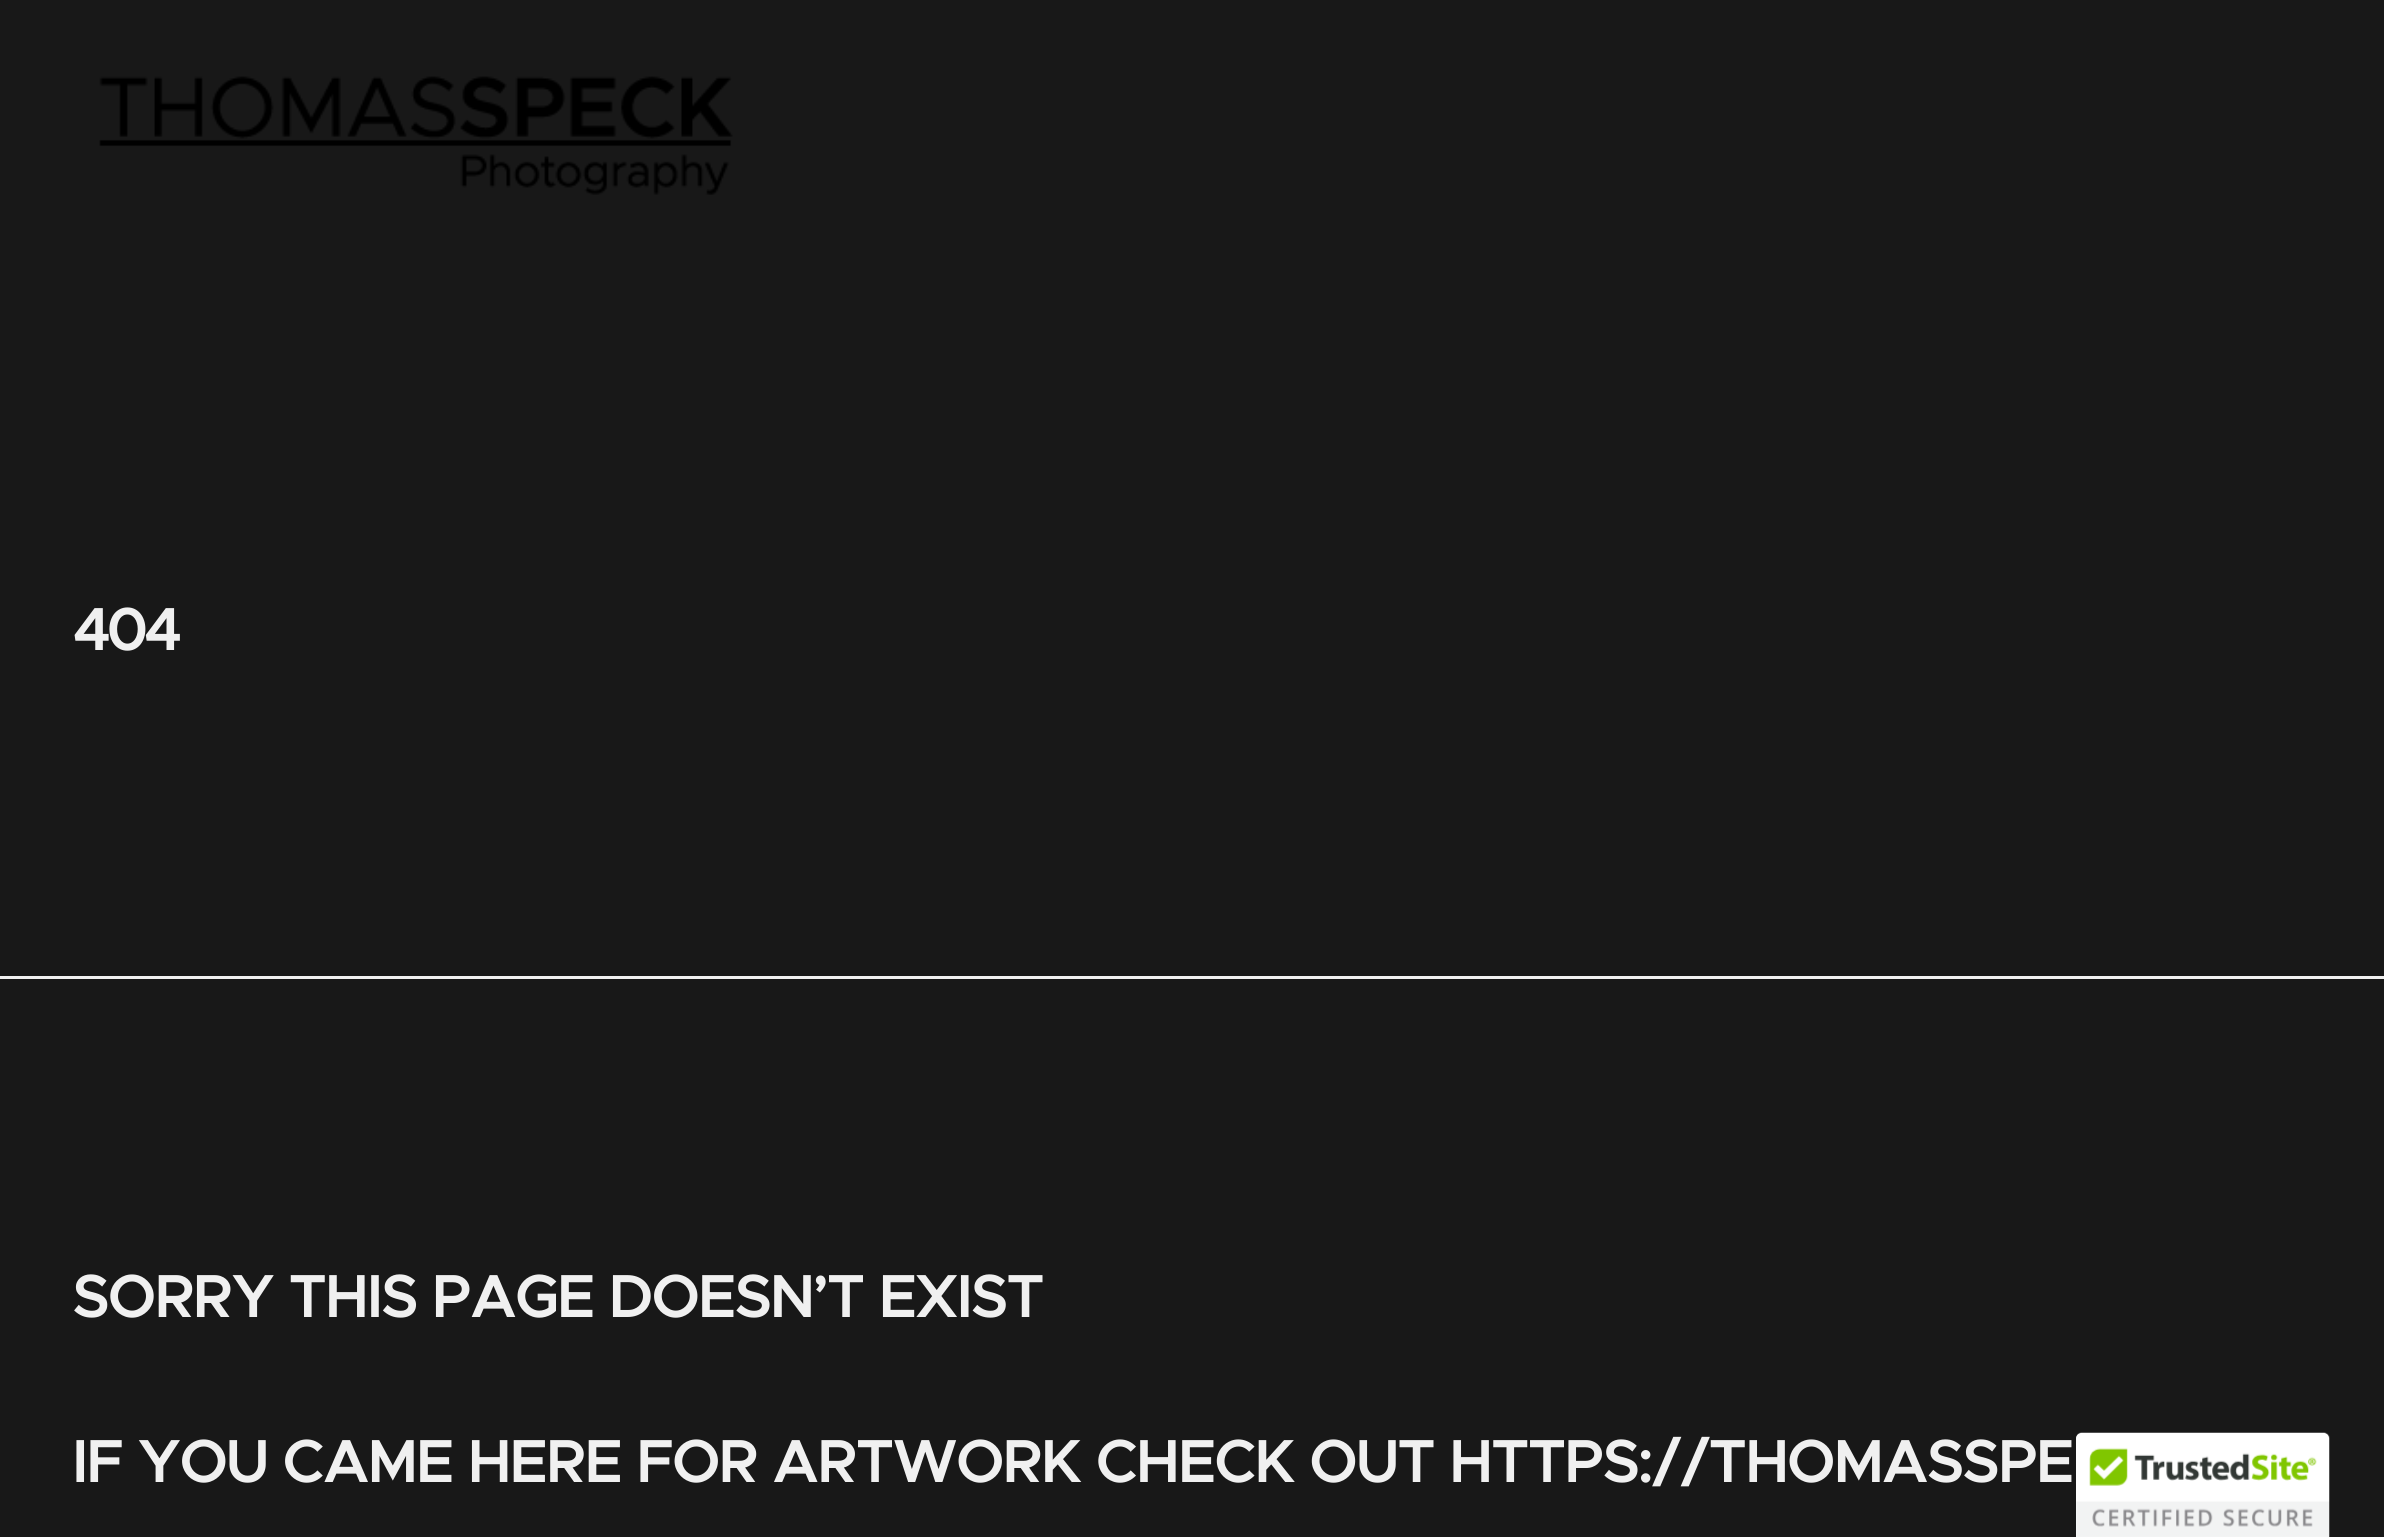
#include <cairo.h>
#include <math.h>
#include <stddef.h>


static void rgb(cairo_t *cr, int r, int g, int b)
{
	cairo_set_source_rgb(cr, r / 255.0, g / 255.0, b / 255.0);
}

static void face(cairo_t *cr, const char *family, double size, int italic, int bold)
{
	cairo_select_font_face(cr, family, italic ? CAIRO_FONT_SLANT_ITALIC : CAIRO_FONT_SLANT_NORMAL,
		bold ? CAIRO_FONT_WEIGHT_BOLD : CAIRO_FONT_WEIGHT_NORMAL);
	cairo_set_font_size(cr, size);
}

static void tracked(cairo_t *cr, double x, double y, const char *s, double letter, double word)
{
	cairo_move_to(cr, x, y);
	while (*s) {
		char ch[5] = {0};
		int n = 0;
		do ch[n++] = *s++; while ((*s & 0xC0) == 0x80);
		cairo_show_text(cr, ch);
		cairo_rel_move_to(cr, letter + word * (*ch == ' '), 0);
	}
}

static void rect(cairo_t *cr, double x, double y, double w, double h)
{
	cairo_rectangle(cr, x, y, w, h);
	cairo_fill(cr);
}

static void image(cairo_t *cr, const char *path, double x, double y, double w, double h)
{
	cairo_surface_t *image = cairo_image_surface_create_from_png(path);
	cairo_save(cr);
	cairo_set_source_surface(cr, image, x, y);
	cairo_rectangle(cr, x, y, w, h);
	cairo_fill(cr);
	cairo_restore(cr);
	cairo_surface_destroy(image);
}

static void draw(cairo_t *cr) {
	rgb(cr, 24, 24, 24);
	cairo_paint(cr);
	image(cr, "image0.png", 99, 76, 634, 119);
	face(cr, "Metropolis", 58.6, 0, 1);
	rgb(cr, 240, 240, 240);
	tracked(cr, 72, 650, "404", -3.5, 0);
	rect(cr, 0, 976, 2384, 3);
	tracked(cr, 72, 1317, "SORRY THIS PAGE DOESN’T EXIST", -0.77, 0);
	tracked(cr, 72, 1482, "IF YOU CAME HERE FOR ARTWORK CHECK OUT HTTPS://THOMASSPE", -0.77, 0);
	rgb(cr, 255, 255, 255);
	cairo_new_path(cr);
	cairo_move_to(cr, 2082, 1433);
	cairo_line_to(cr, 2323, 1433);
	cairo_curve_to(cr, 2326.5, 1433, 2329, 1435.5, 2329, 1439);
	cairo_line_to(cr, 2329, 1537);
	cairo_line_to(cr, 2076, 1537);
	cairo_line_to(cr, 2076, 1439);
	cairo_curve_to(cr, 2076, 1435.5, 2078.5, 1433, 2082, 1433);
	cairo_close_path(cr);
	cairo_fill(cr);
	image(cr, "image1.png", 2076, 1432, 254, 105);
}

int main(void) {
	cairo_surface_t *surface = cairo_image_surface_create(CAIRO_FORMAT_RGB24, 2384, 1537);
	cairo_t *cr = cairo_create(surface);
	cairo_font_options_t *options = cairo_font_options_create();
	cairo_font_options_set_hint_metrics(options, CAIRO_HINT_METRICS_OFF);
	cairo_font_options_set_hint_style(options, CAIRO_HINT_STYLE_NONE);
	cairo_set_font_options(cr, options);
	cairo_set_miter_limit(cr, 4);
	draw(cr);
	cairo_surface_write_to_png(surface, "render.png");
	cairo_font_options_destroy(options);
	cairo_destroy(cr);
	cairo_surface_destroy(surface);
	return 0;
}
